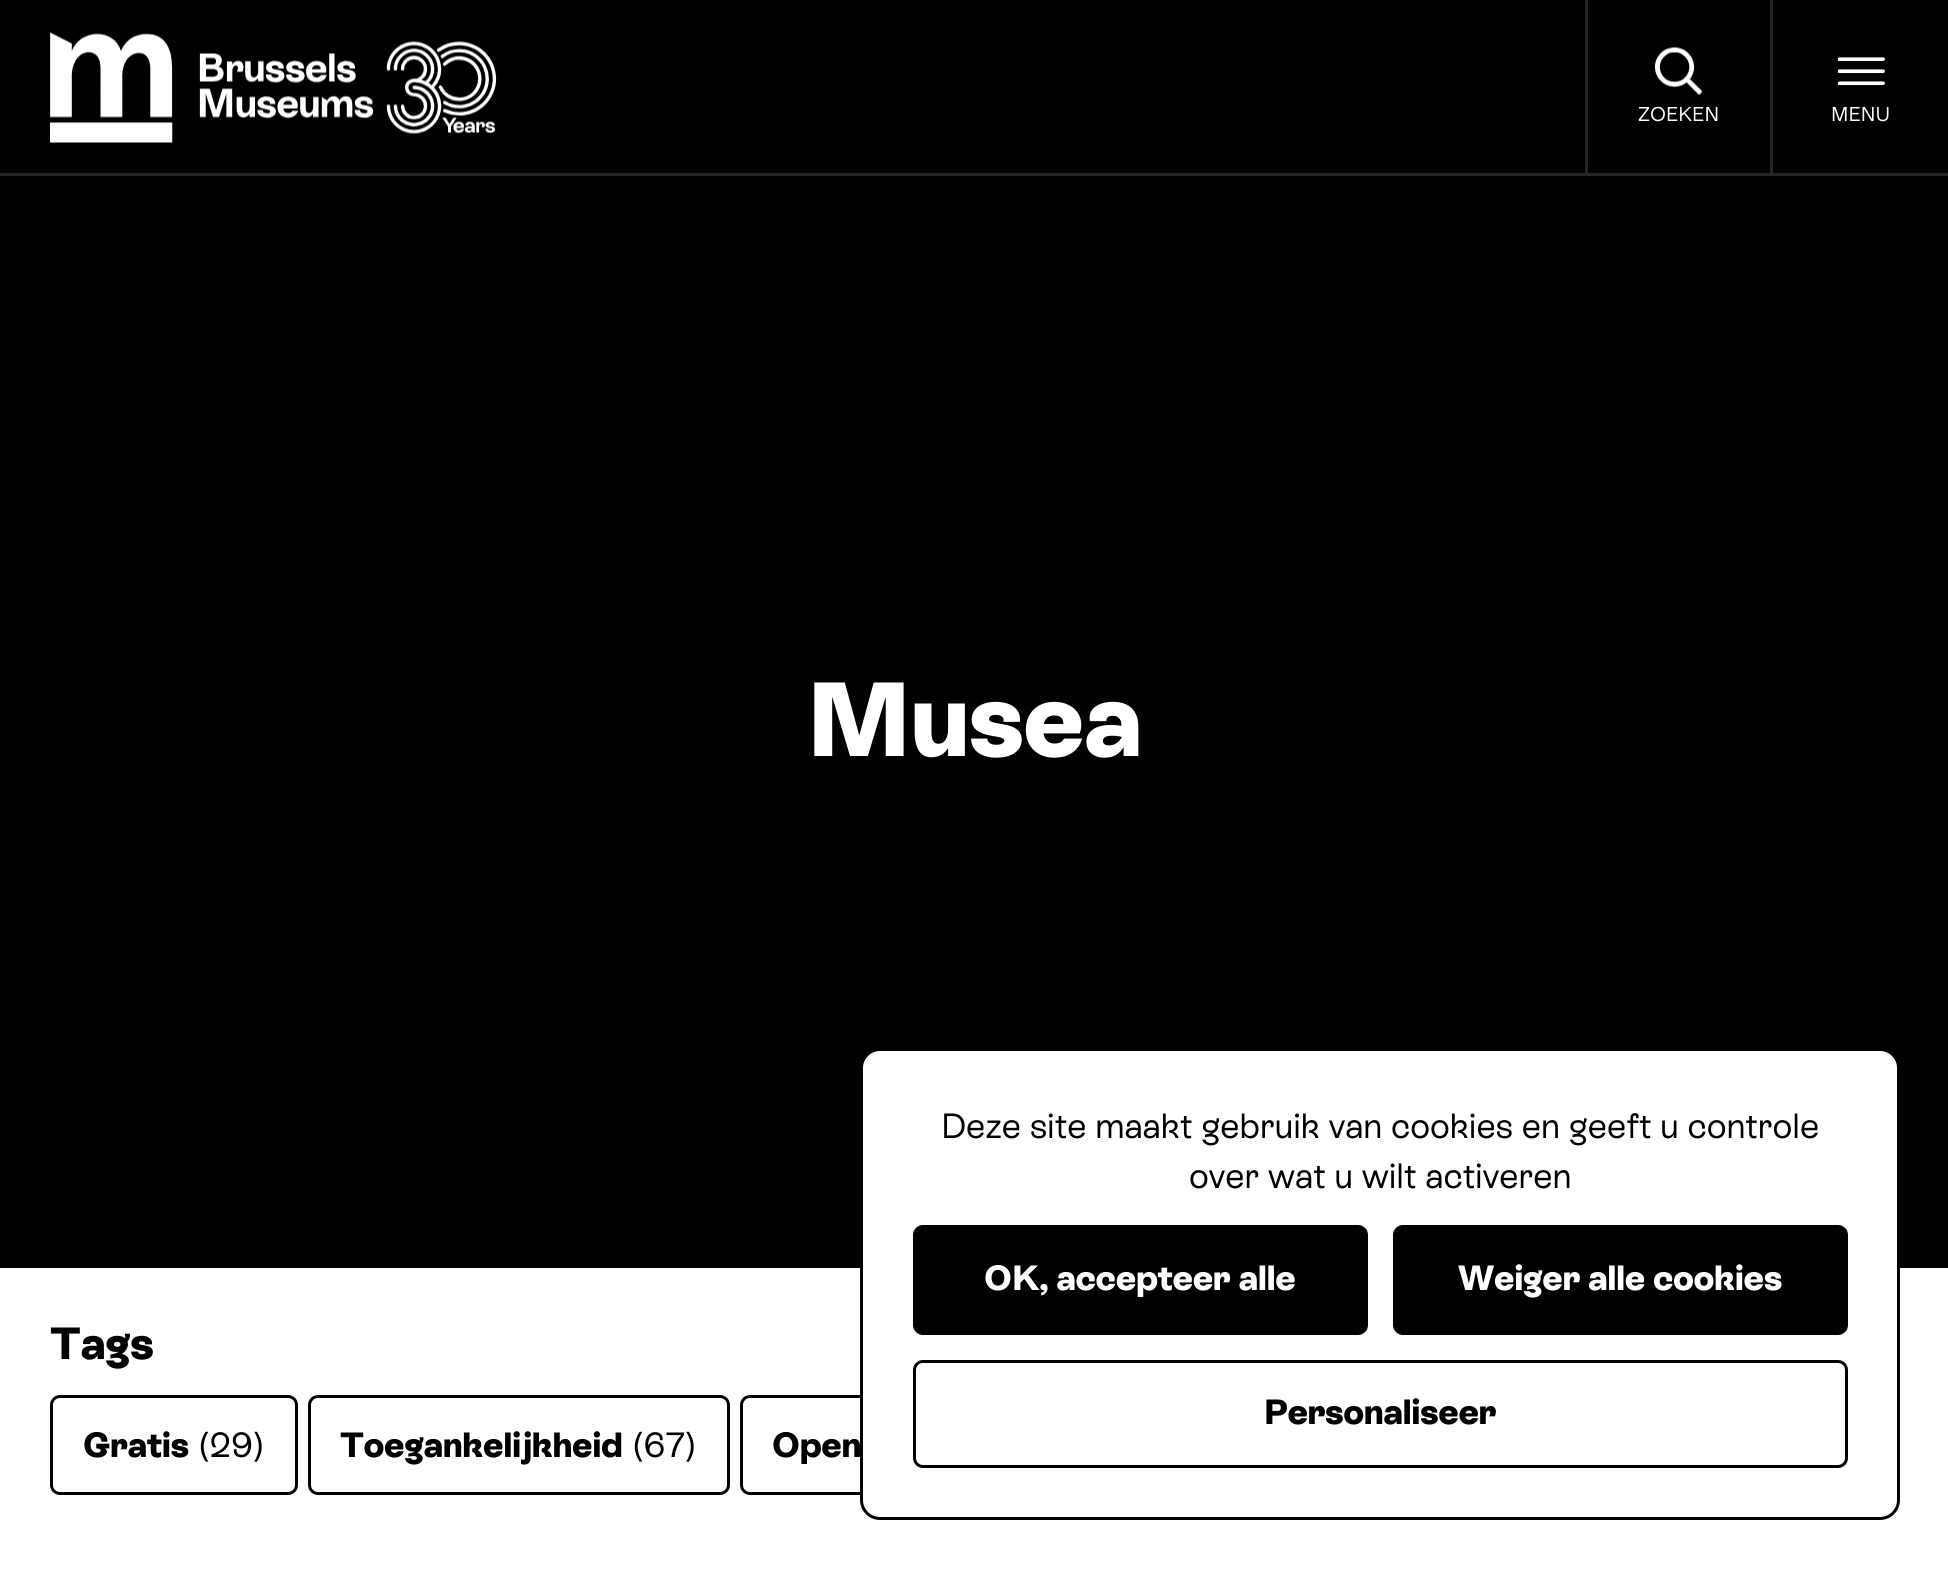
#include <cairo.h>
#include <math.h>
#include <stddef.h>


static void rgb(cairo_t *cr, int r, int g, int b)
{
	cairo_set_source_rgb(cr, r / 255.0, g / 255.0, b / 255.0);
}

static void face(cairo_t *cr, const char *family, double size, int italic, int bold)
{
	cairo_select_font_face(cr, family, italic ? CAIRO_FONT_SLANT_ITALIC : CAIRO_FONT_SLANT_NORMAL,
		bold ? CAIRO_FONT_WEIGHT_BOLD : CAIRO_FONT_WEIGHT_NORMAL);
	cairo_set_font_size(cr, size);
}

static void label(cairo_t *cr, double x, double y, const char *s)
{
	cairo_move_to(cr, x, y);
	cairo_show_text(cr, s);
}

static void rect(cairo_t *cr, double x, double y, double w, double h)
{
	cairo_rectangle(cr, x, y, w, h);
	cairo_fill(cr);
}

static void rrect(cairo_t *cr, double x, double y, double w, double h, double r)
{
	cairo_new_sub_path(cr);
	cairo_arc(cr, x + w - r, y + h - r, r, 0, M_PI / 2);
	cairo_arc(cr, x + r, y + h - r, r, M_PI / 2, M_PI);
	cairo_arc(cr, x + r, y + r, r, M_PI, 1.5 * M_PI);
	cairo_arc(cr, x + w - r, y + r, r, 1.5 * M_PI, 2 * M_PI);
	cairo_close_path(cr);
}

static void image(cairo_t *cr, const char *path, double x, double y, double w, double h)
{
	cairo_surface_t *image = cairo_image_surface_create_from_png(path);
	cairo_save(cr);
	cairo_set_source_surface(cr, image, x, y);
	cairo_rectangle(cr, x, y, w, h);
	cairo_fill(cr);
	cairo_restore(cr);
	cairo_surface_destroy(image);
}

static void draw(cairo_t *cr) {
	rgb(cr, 255, 255, 255);
	cairo_paint(cr);
	rgb(cr, 0, 0, 0);
	rect(cr, 0, 0, 1948, 173);
	rgb(cr, 38, 38, 38);
	rect(cr, 0, 173, 1948, 3);
	image(cr, "image0.png", 50, 32, 447, 111);
	rect(cr, 1585, 0, 3, 173);
	image(cr, "image1.png", 1655, 47, 47, 48);
	face(cr, "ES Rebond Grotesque", 20, 0, 0);
	rgb(cr, 255, 255, 255);
	label(cr, 1638, 121, "ZOEKEN");
	rgb(cr, 38, 38, 38);
	rect(cr, 1770, 0, 3, 173);
	image(cr, "image2.png", 1838, 57, 47, 29);
	rgb(cr, 255, 255, 255);
	label(cr, 1831, 121, "MENU");
	rgb(cr, 0, 0, 0);
	rect(cr, 0, 176, 1948, 1092);
	face(cr, "ES Rebond Grotesque ExtraBold", 105, 0, 0);
	rgb(cr, 255, 255, 255);
	label(cr, 807, 756, "Musea");
	face(cr, "ES Rebond Grotesque ExtraBold", 45, 0, 0);
	rgb(cr, 0, 0, 0);
	label(cr, 50, 1359, "Tags");
	rrect(cr, 51.5, 1396.5, 245, 97, 8.5);
	cairo_set_line_width(cr, 3);
	cairo_stroke(cr);
	face(cr, "ES Rebond Grotesque ExtraBold", 35, 0, 0);
	label(cr, 83, 1457, "Gratis");
	face(cr, "ES Rebond Grotesque", 35, 0, 0);
	label(cr, 198, 1457, "(29)");
	rrect(cr, 309.5, 1396.5, 419, 97, 8.5);
	cairo_stroke(cr);
	face(cr, "ES Rebond Grotesque ExtraBold", 35, 0, 0);
	label(cr, 340, 1457, "Toegankelijkheid");
	face(cr, "ES Rebond Grotesque", 35, 0, 0);
	label(cr, 632, 1457, "(67)");
	rrect(cr, 741.5, 1396.5, 432, 97, 8.5);
	cairo_stroke(cr);
	face(cr, "ES Rebond Grotesque ExtraBold", 35, 0, 0);
	label(cr, 772, 1457, "Open");
	rgb(cr, 255, 255, 255);
	rrect(cr, 861.5, 1049.5, 1037, 469, 18.5);
	cairo_fill_preserve(cr);
	rgb(cr, 0, 0, 0);
	cairo_stroke(cr);
	face(cr, "ES Rebond Grotesque", 35, 0, 0);
	label(cr, 941, 1138, "Deze site maakt gebruik van cookies en geeft u controle");
	label(cr, 1189, 1188, "over wat u wilt activeren");
	rrect(cr, 914.5, 1226.5, 452, 107, 8.5);
	cairo_fill_preserve(cr);
	cairo_stroke(cr);
	face(cr, "ES Rebond Grotesque ExtraBold", 35, 0, 0);
	rgb(cr, 255, 255, 255);
	label(cr, 984, 1290, "OK, accepteer alle");
	rgb(cr, 0, 0, 0);
	rrect(cr, 1394.5, 1226.5, 452, 107, 8.5);
	cairo_fill_preserve(cr);
	cairo_stroke(cr);
	rgb(cr, 255, 255, 255);
	label(cr, 1458, 1290, "Weiger alle cookies");
	rrect(cr, 914.5, 1361.5, 932, 105, 8.5);
	rgb(cr, 0, 0, 0);
	cairo_stroke(cr);
	label(cr, 1264, 1424, "Personaliseer");
}

int main(void) {
	cairo_surface_t *surface = cairo_image_surface_create(CAIRO_FORMAT_RGB24, 1948, 1570);
	cairo_t *cr = cairo_create(surface);
	cairo_font_options_t *options = cairo_font_options_create();
	cairo_font_options_set_hint_metrics(options, CAIRO_HINT_METRICS_OFF);
	cairo_font_options_set_hint_style(options, CAIRO_HINT_STYLE_NONE);
	cairo_set_font_options(cr, options);
	cairo_set_miter_limit(cr, 4);
	draw(cr);
	cairo_surface_write_to_png(surface, "render.png");
	cairo_font_options_destroy(options);
	cairo_destroy(cr);
	cairo_surface_destroy(surface);
	return 0;
}
